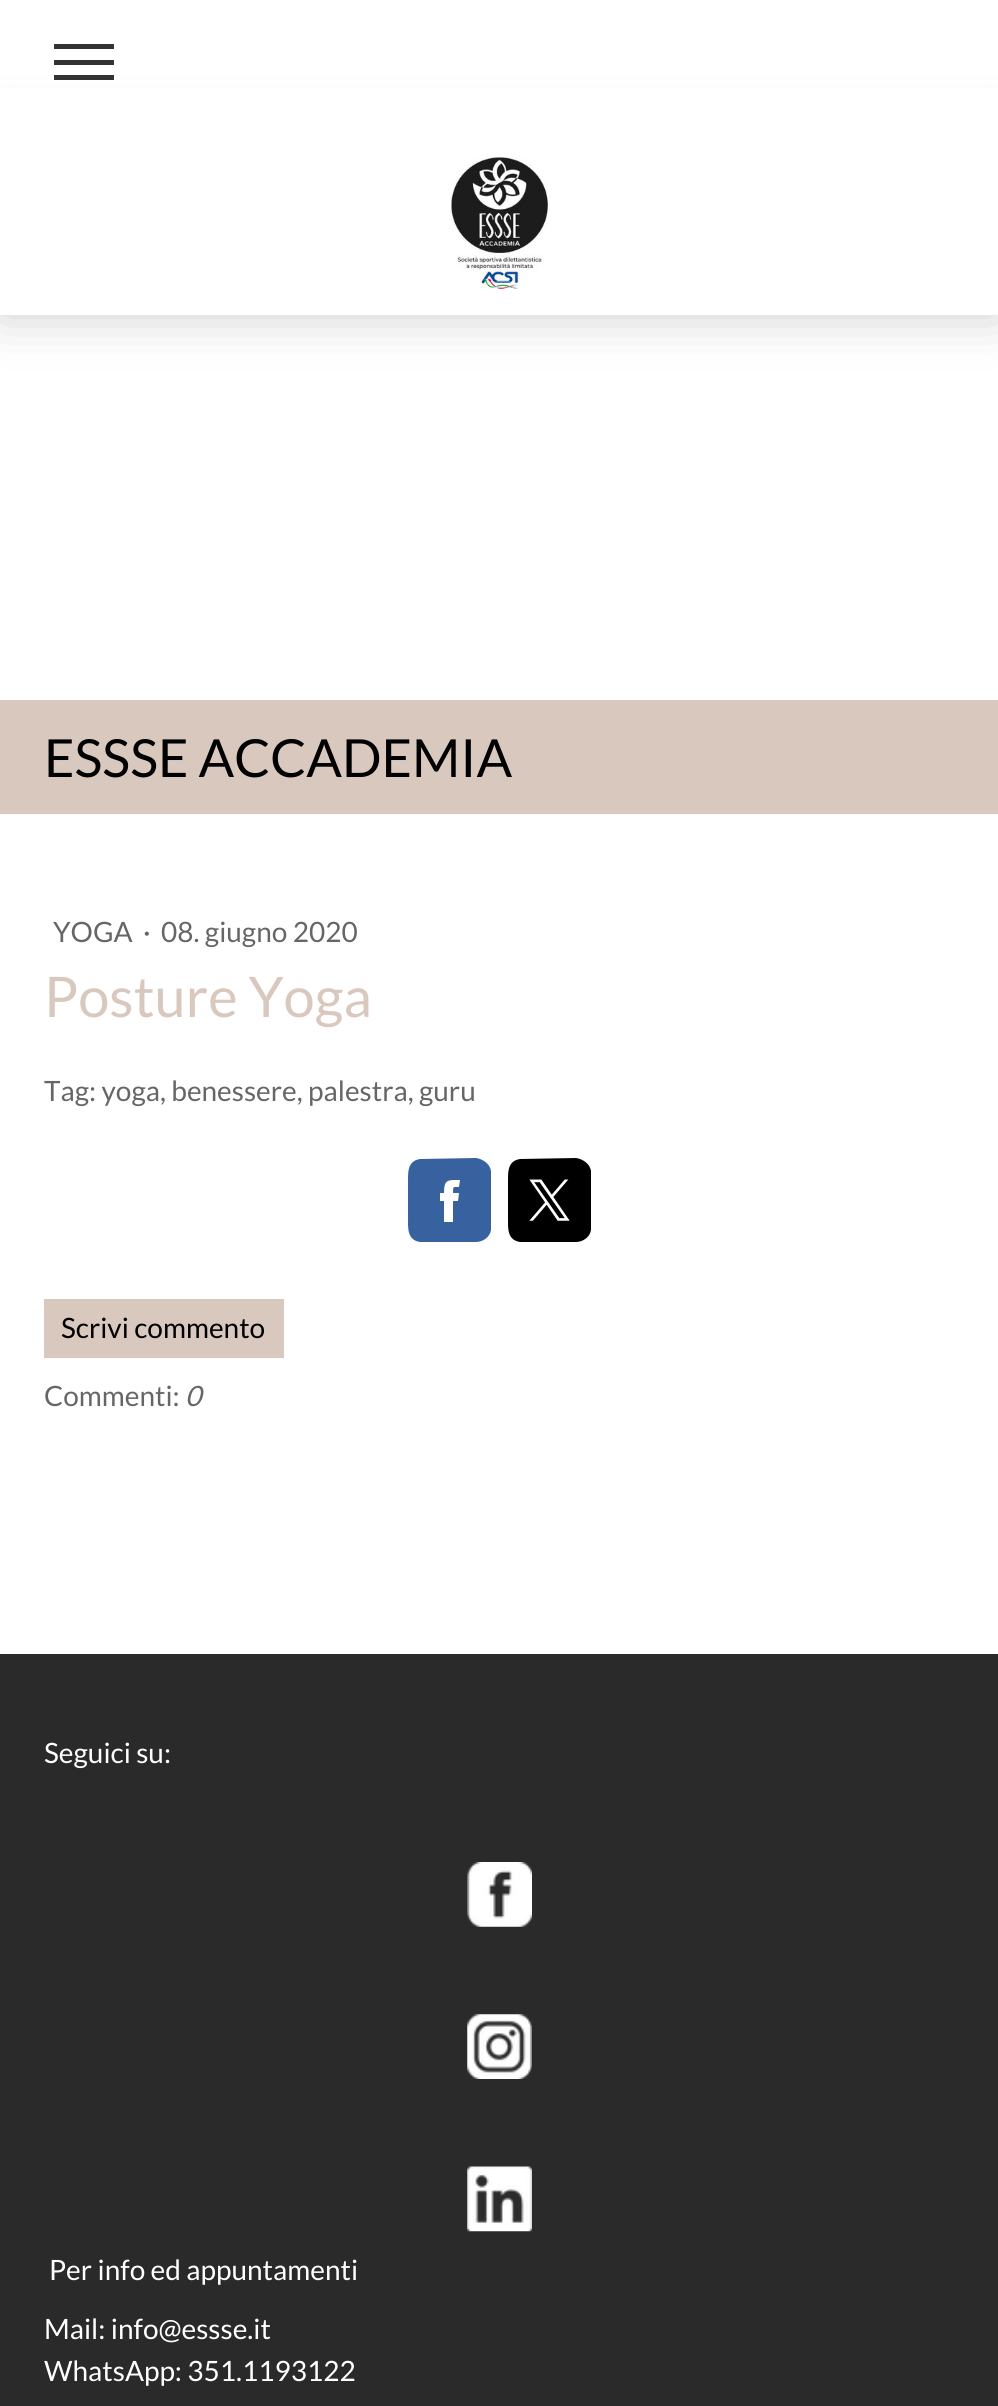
#include <cairo.h>
#include <math.h>
#include <stddef.h>


static void rgb(cairo_t *cr, int r, int g, int b)
{
	cairo_set_source_rgb(cr, r / 255.0, g / 255.0, b / 255.0);
}

static void face(cairo_t *cr, const char *family, double size, int italic, int bold)
{
	cairo_select_font_face(cr, family, italic ? CAIRO_FONT_SLANT_ITALIC : CAIRO_FONT_SLANT_NORMAL,
		bold ? CAIRO_FONT_WEIGHT_BOLD : CAIRO_FONT_WEIGHT_NORMAL);
	cairo_set_font_size(cr, size);
}

static void label(cairo_t *cr, double x, double y, const char *s)
{
	cairo_move_to(cr, x, y);
	cairo_show_text(cr, s);
}

static void rect(cairo_t *cr, double x, double y, double w, double h)
{
	cairo_rectangle(cr, x, y, w, h);
	cairo_fill(cr);
}

static void rrect(cairo_t *cr, double x, double y, double w, double h, double r)
{
	cairo_new_sub_path(cr);
	cairo_arc(cr, x + w - r, y + h - r, r, 0, M_PI / 2);
	cairo_arc(cr, x + r, y + h - r, r, M_PI / 2, M_PI);
	cairo_arc(cr, x + r, y + r, r, M_PI, 1.5 * M_PI);
	cairo_arc(cr, x + w - r, y + r, r, 1.5 * M_PI, 2 * M_PI);
	cairo_close_path(cr);
}

static void soft_shadow(cairo_t *cr, double x, double y, double w, double h, double r, double blur, double alpha)
{
	cairo_push_group_with_content(cr, CAIRO_CONTENT_ALPHA);
	cairo_set_operator(cr, CAIRO_OPERATOR_SOURCE);
	for (int i = 15; i >= -15 && fmin(w, h) + blur * i / 3 > 0; i -= 2) {
		double e = blur * i / 6;
		cairo_set_source_rgba(cr, 0, 0, 0, alpha * erfc((i - 1) / 8.5) / 2);
		rrect(cr, x - e, y - e, w + 2 * e, h + 2 * e, fmax(0, fmin(r + e + blur * .6, fmin(w, h) / 2 + e)));
		cairo_fill(cr);
	}
	cairo_pattern_t *soft = cairo_pop_group(cr);
	cairo_mask(cr, soft);
	cairo_pattern_destroy(soft);
}

static void image(cairo_t *cr, const char *path, double x, double y, double w, double h)
{
	cairo_surface_t *image = cairo_image_surface_create_from_png(path);
	cairo_save(cr);
	cairo_set_source_surface(cr, image, x, y);
	cairo_rectangle(cr, x, y, w, h);
	cairo_fill(cr);
	cairo_restore(cr);
	cairo_surface_destroy(image);
}

static void draw(cairo_t *cr) {
	rgb(cr, 255, 255, 255);
	cairo_paint(cr);
	rgb(cr, 0, 0, 0);
	soft_shadow(cr, 0, 131, 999, 184, 0, 26, 0.2);
	rgb(cr, 51, 51, 51);
	rect(cr, 54, 60, 60, 5);
	rect(cr, 54, 44, 60, 5);
	rect(cr, 54, 75, 60, 5);
	rgb(cr, 255, 255, 255);
	rect(cr, 0, 88, 998, 227);
	image(cr, "image0.png", 451, 157, 97, 132);
	rgb(cr, 217, 200, 190);
	rect(cr, 0, 700, 998, 114);
	face(cr, "Lato", 52.5, 0, 0);
	rgb(cr, 0, 0, 0);
	label(cr, 44, 777, "ESSSE ACCADEMIA");
	face(cr, "Lato", 28, 0, 0);
	rgb(cr, 102, 102, 102);
	label(cr, 53, 942, "YOGA");
	label(cr, 143, 942, "·");
	label(cr, 161, 942, "08. giugno 2020");
	face(cr, "Lato", 56, 0, 0);
	rgb(cr, 217, 200, 190);
	label(cr, 44, 1017, "Posture Yoga");
	face(cr, "Lato", 28, 0, 0);
	rgb(cr, 102, 102, 102);
	label(cr, 44, 1101, "Tag: yoga, benessere, palestra, guru");
	rgb(cr, 56, 97, 159);
	cairo_new_path(cr);
	cairo_move_to(cr, 476, 1242);
	cairo_line_to(cr, 420, 1242);
	cairo_curve_to(cr, 407, 1240, 408, 1228, 408, 1218);
	cairo_line_to(cr, 408, 1183);
	cairo_curve_to(cr, 408, 1173, 407, 1161, 420, 1159);
	cairo_line_to(cr, 476, 1158);
	cairo_curve_to(cr, 483, 1159, 490, 1164, 491, 1171);
	cairo_line_to(cr, 491, 1230);
	cairo_curve_to(cr, 490, 1237, 483, 1242, 476, 1242);
	cairo_close_path(cr);
	cairo_fill(cr);
	rgb(cr, 255, 255, 255);
	cairo_new_path(cr);
	cairo_move_to(cr, 460, 1180);
	cairo_curve_to(cr, 448, 1180, 444, 1179, 444, 1193);
	cairo_line_to(cr, 440, 1193);
	cairo_line_to(cr, 440, 1201);
	cairo_line_to(cr, 444, 1201);
	cairo_line_to(cr, 444, 1222);
	cairo_line_to(cr, 453, 1222);
	cairo_line_to(cr, 453, 1201);
	cairo_line_to(cr, 458, 1201);
	cairo_line_to(cr, 459, 1193);
	cairo_line_to(cr, 453, 1193);
	cairo_curve_to(cr, 453, 1186, 453, 1187, 459, 1187);
	cairo_close_path(cr);
	cairo_fill(cr);
	rgb(cr, 0, 0, 0);
	cairo_new_path(cr);
	cairo_move_to(cr, 576, 1242);
	cairo_line_to(cr, 520, 1242);
	cairo_curve_to(cr, 507, 1240, 508, 1228, 508, 1218);
	cairo_line_to(cr, 508, 1183);
	cairo_curve_to(cr, 508, 1173, 507, 1161, 520, 1159);
	cairo_line_to(cr, 576, 1158);
	cairo_curve_to(cr, 583, 1159, 590, 1164, 591, 1171);
	cairo_line_to(cr, 591, 1230);
	cairo_curve_to(cr, 590, 1237, 583, 1242, 576, 1242);
	cairo_close_path(cr);
	cairo_fill(cr);
	image(cr, "image1.png", 529, 1179, 41, 42);
	rgb(cr, 217, 200, 190);
	rect(cr, 44, 1299, 240, 59);
	rgb(cr, 0, 0, 0);
	label(cr, 61, 1338, "Scrivi commento");
	rgb(cr, 102, 102, 102);
	label(cr, 44, 1406, "Commenti:");
	face(cr, "Lato", 28, 1, 0);
	label(cr, 185, 1406, "0");
	rgb(cr, 42, 42, 42);
	rect(cr, 0, 1654, 998, 752);
	face(cr, "Lato", 28, 0, 0);
	rgb(cr, 255, 255, 255);
	label(cr, 44, 1763, "Seguici su:");
	image(cr, "image2.png", 467, 1862, 65, 65);
	image(cr, "image3.png", 467, 2014, 65, 65);
	image(cr, "image4.png", 467, 2166, 65, 66);
	label(cr, 49, 2280, "Per info ed appuntamenti");
	label(cr, 44, 2339, "Mail: info@essse.it");
	label(cr, 44, 2381, "WhatsApp: 351.1193122");
}

int main(void) {
	cairo_surface_t *surface = cairo_image_surface_create(CAIRO_FORMAT_RGB24, 998, 2406);
	cairo_t *cr = cairo_create(surface);
	cairo_font_options_t *options = cairo_font_options_create();
	cairo_font_options_set_hint_metrics(options, CAIRO_HINT_METRICS_OFF);
	cairo_font_options_set_hint_style(options, CAIRO_HINT_STYLE_NONE);
	cairo_set_font_options(cr, options);
	cairo_set_miter_limit(cr, 4);
	draw(cr);
	cairo_surface_write_to_png(surface, "render.png");
	cairo_font_options_destroy(options);
	cairo_destroy(cr);
	cairo_surface_destroy(surface);
	return 0;
}
